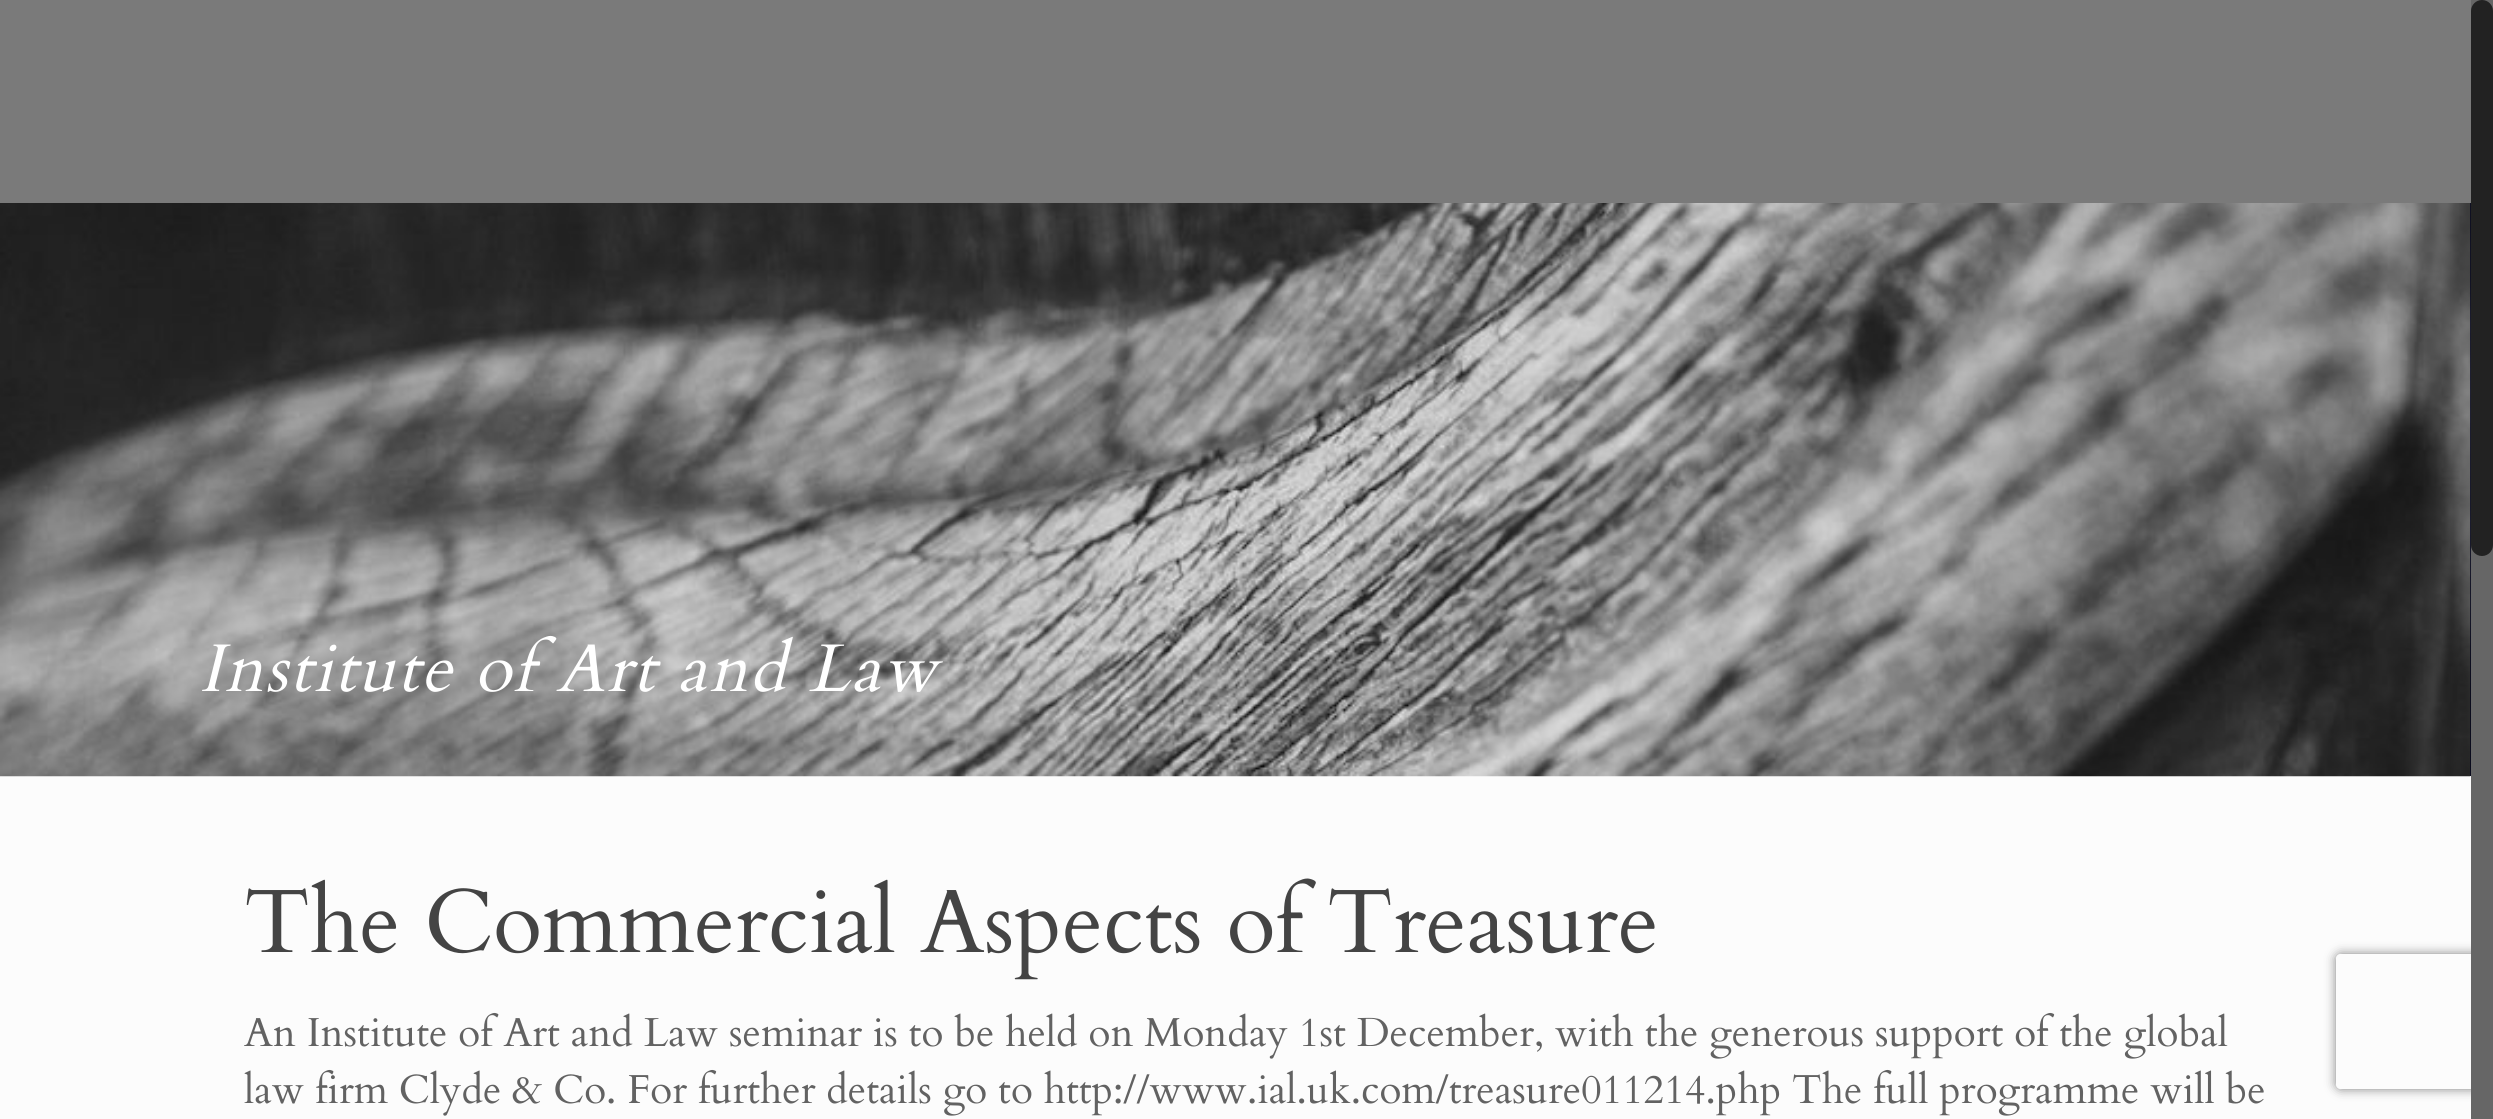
#include <cairo.h>
#include <math.h>
#include <stddef.h>


static void rgb(cairo_t *cr, int r, int g, int b)
{
	cairo_set_source_rgb(cr, r / 255.0, g / 255.0, b / 255.0);
}

static void face(cairo_t *cr, const char *family, double size, int italic, int bold)
{
	cairo_select_font_face(cr, family, italic ? CAIRO_FONT_SLANT_ITALIC : CAIRO_FONT_SLANT_NORMAL,
		bold ? CAIRO_FONT_WEIGHT_BOLD : CAIRO_FONT_WEIGHT_NORMAL);
	cairo_set_font_size(cr, size);
}

static void label(cairo_t *cr, double x, double y, const char *s)
{
	cairo_move_to(cr, x, y);
	cairo_show_text(cr, s);
}

static void tracked(cairo_t *cr, double x, double y, const char *s, double letter, double word)
{
	cairo_move_to(cr, x, y);
	while (*s) {
		char ch[5] = {0};
		int n = 0;
		do ch[n++] = *s++; while ((*s & 0xC0) == 0x80);
		cairo_show_text(cr, ch);
		cairo_rel_move_to(cr, letter + word * (*ch == ' '), 0);
	}
}

static void rect(cairo_t *cr, double x, double y, double w, double h)
{
	cairo_rectangle(cr, x, y, w, h);
	cairo_fill(cr);
}

static void rrect(cairo_t *cr, double x, double y, double w, double h, double r)
{
	cairo_new_sub_path(cr);
	cairo_arc(cr, x + w - r, y + h - r, r, 0, M_PI / 2);
	cairo_arc(cr, x + r, y + h - r, r, M_PI / 2, M_PI);
	cairo_arc(cr, x + r, y + r, r, M_PI, 1.5 * M_PI);
	cairo_arc(cr, x + w - r, y + r, r, 1.5 * M_PI, 2 * M_PI);
	cairo_close_path(cr);
}

static void soft_shadow(cairo_t *cr, double x, double y, double w, double h, double r, double blur, double alpha)
{
	cairo_push_group_with_content(cr, CAIRO_CONTENT_ALPHA);
	cairo_set_operator(cr, CAIRO_OPERATOR_SOURCE);
	for (int i = 15; i >= -15 && fmin(w, h) + blur * i / 3 > 0; i -= 2) {
		double e = blur * i / 6;
		cairo_set_source_rgba(cr, 0, 0, 0, alpha * erfc((i - 1) / 8.5) / 2);
		rrect(cr, x - e, y - e, w + 2 * e, h + 2 * e, fmax(0, fmin(r + e + blur * .6, fmin(w, h) / 2 + e)));
		cairo_fill(cr);
	}
	cairo_pattern_t *soft = cairo_pop_group(cr);
	cairo_mask(cr, soft);
	cairo_pattern_destroy(soft);
}

static void image(cairo_t *cr, const char *path, double x, double y, double w, double h)
{
	cairo_surface_t *image = cairo_image_surface_create_from_png(path);
	cairo_save(cr);
	cairo_set_source_surface(cr, image, x, y);
	cairo_rectangle(cr, x, y, w, h);
	cairo_fill(cr);
	cairo_restore(cr);
	cairo_surface_destroy(image);
}

static void draw(cairo_t *cr) {
	rgb(cr, 252, 252, 252);
	cairo_paint(cr);
	rgb(cr, 0, 1, 25);
	rect(cr, 2470, 203, 1, 573);
	image(cr, "image0.png", 0, 203, 2471, 574);
	rgb(cr, 122, 122, 122);
	rect(cr, 0, 0, 2471, 203);
	face(cr, "Cardo", 67.5, 1, 0);
	rgb(cr, 255, 255, 255);
	tracked(cr, 199, 691, "Institute of Art and Law", 2.25, 0);
	face(cr, "Cardo", 90, 0, 0);
	rgb(cr, 68, 68, 68);
	label(cr, 244, 952, "The Commercial Aspects of Treasure");
	face(cr, "Cardo", 40.5, 0, 0);
	rgb(cr, 98, 98, 98);
	label(cr, 244, 1046, "An Institute of Art and Law seminar is to be held on Monday 1st December, with the generous support of the global");
	label(cr, 244, 1103, "law firm Clyde & Co. For further details go to http://www.ial.uk.com/treasure011214.php The full programme will be");
	cairo_save(cr);
	cairo_set_fill_rule(cr, CAIRO_FILL_RULE_EVEN_ODD);
	cairo_new_path(cr);
	cairo_move_to(cr, 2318, 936);
	cairo_line_to(cr, 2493, 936);
	cairo_line_to(cr, 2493, 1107);
	cairo_line_to(cr, 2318, 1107);
	cairo_close_path(cr);
	cairo_move_to(cr, 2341, 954);
	cairo_line_to(cr, 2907, 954);
	cairo_curve_to(cr, 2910, 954, 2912, 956, 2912, 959);
	cairo_line_to(cr, 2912, 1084);
	cairo_curve_to(cr, 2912, 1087, 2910, 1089, 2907, 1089);
	cairo_line_to(cr, 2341, 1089);
	cairo_curve_to(cr, 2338, 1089, 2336, 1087, 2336, 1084);
	cairo_line_to(cr, 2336, 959);
	cairo_curve_to(cr, 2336, 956, 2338, 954, 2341, 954);
	cairo_close_path(cr);
	cairo_clip(cr);
	rgb(cr, 128, 128, 128);
	soft_shadow(cr, 2336, 954, 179, 135, 5, 5.5, 1);
	cairo_restore(cr);
	rgb(cr, 102, 102, 102);
	rect(cr, 2471, 0, 22, 1119);
	rgb(cr, 34, 34, 34);
	rrect(cr, 2471, 0, 22, 556, 11);
	cairo_fill(cr);
}

int main(void) {
	cairo_surface_t *surface = cairo_image_surface_create(CAIRO_FORMAT_RGB24, 2493, 1119);
	cairo_t *cr = cairo_create(surface);
	cairo_font_options_t *options = cairo_font_options_create();
	cairo_font_options_set_hint_metrics(options, CAIRO_HINT_METRICS_OFF);
	cairo_font_options_set_hint_style(options, CAIRO_HINT_STYLE_NONE);
	cairo_set_font_options(cr, options);
	cairo_set_miter_limit(cr, 4);
	draw(cr);
	cairo_surface_write_to_png(surface, "render.png");
	cairo_font_options_destroy(options);
	cairo_destroy(cr);
	cairo_surface_destroy(surface);
	return 0;
}
